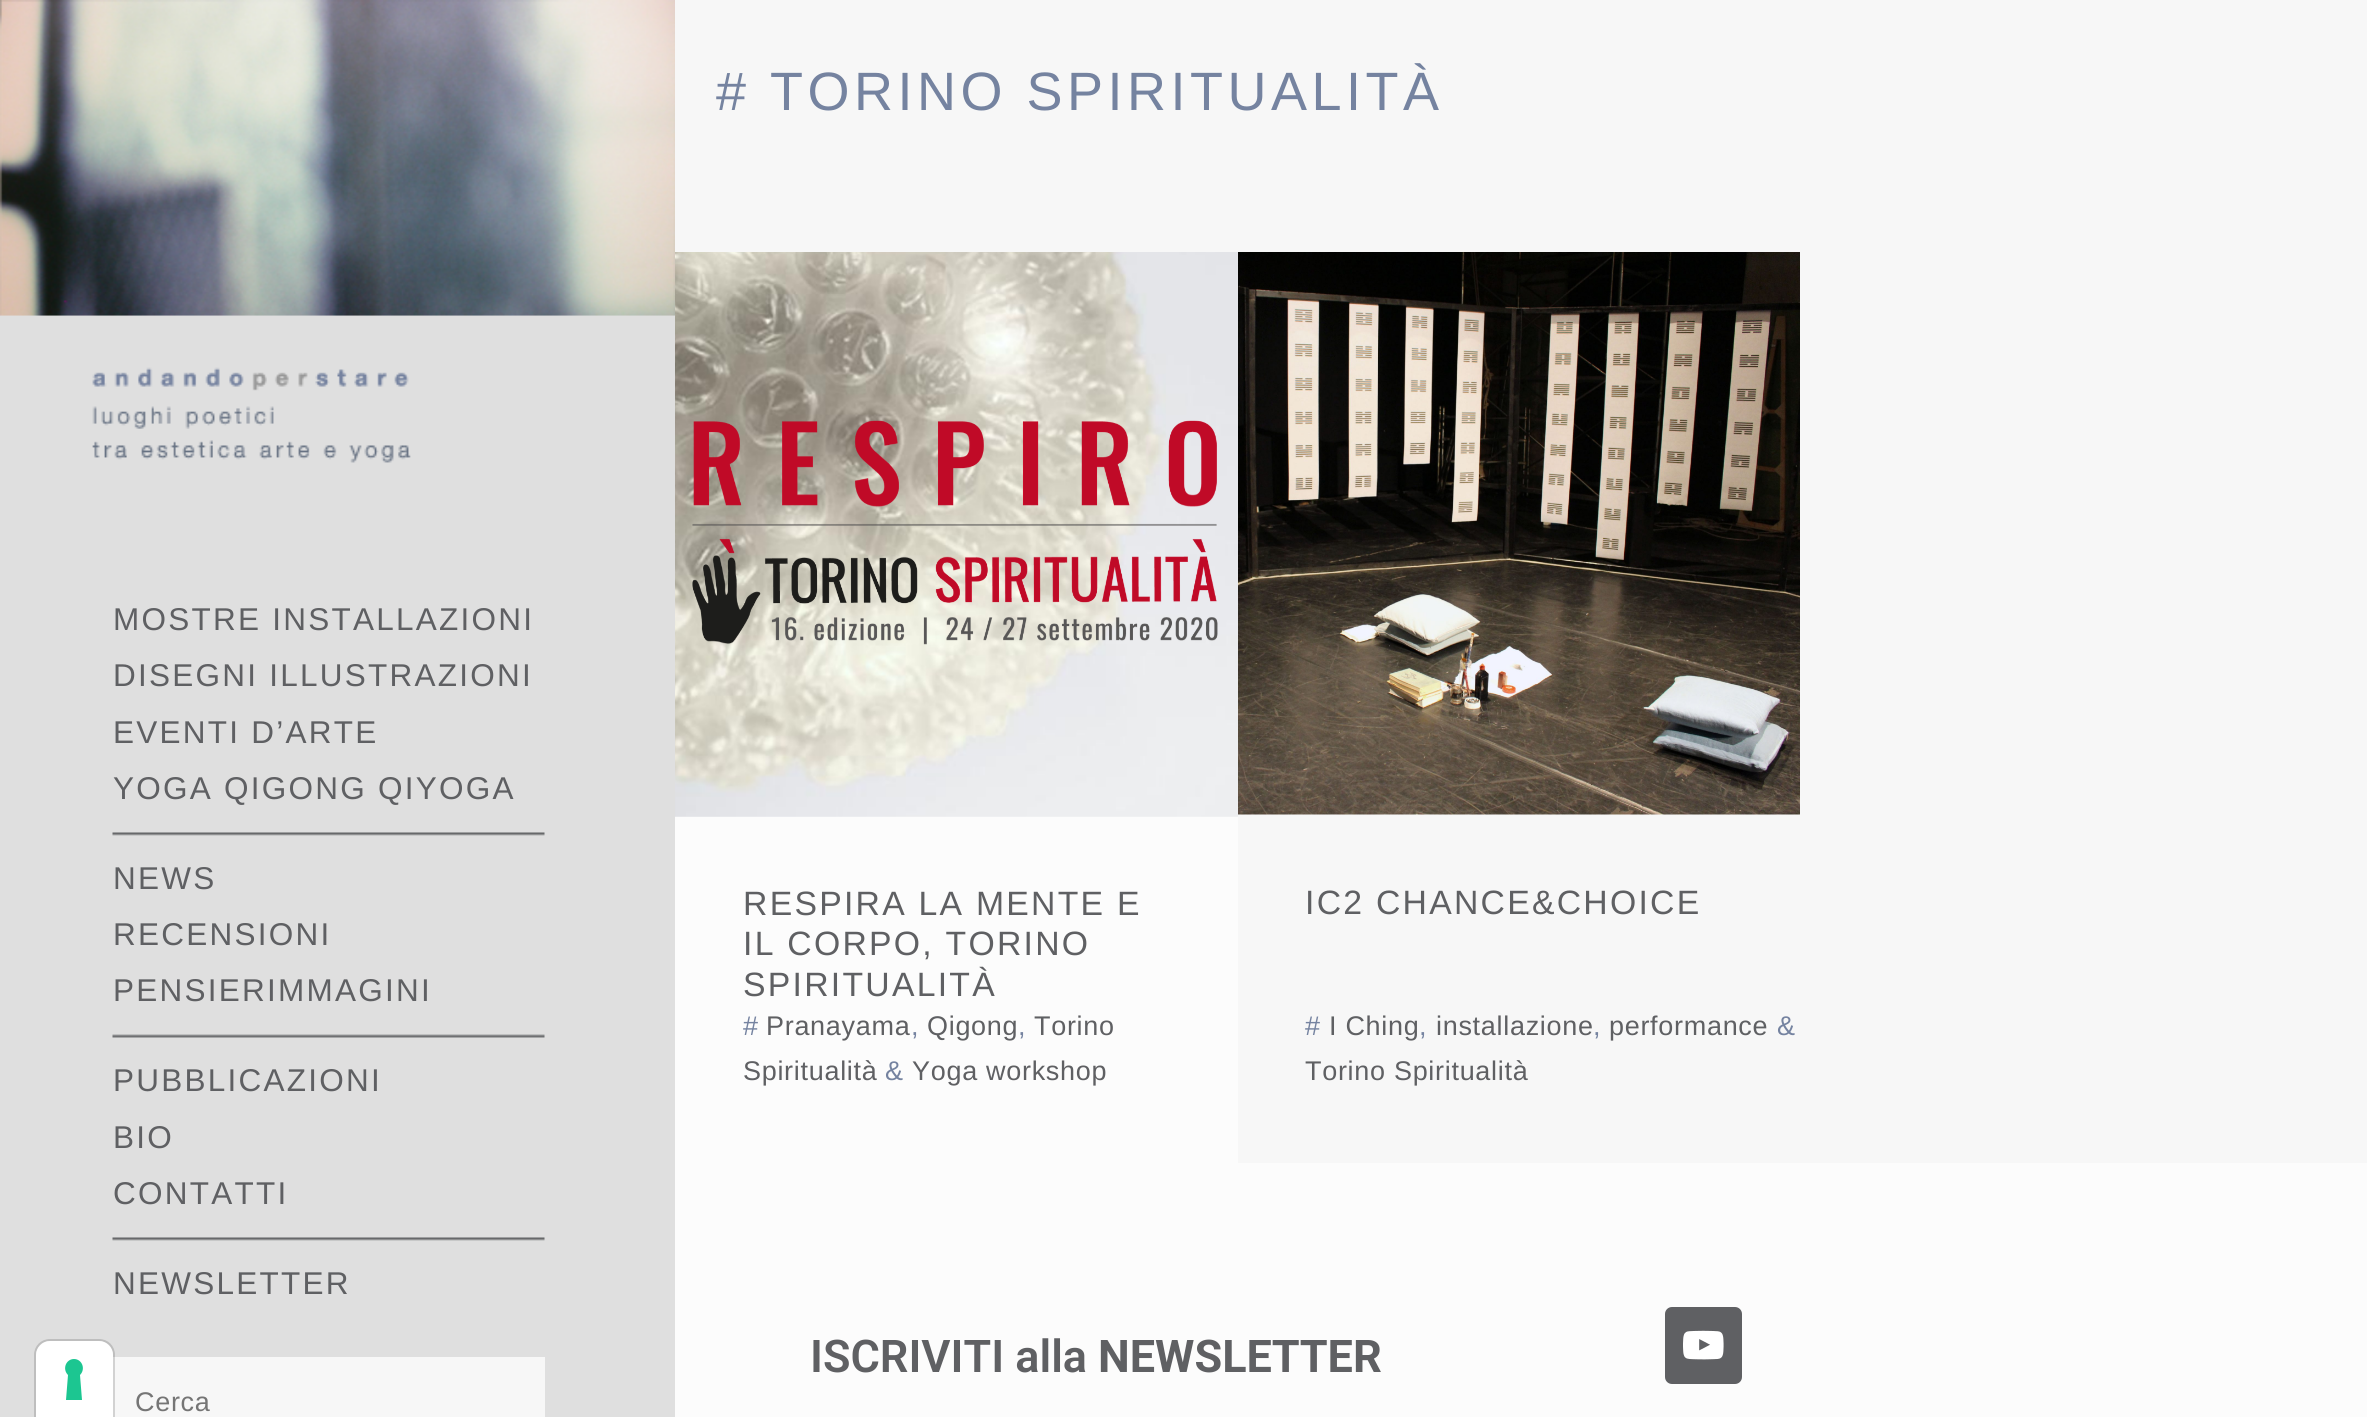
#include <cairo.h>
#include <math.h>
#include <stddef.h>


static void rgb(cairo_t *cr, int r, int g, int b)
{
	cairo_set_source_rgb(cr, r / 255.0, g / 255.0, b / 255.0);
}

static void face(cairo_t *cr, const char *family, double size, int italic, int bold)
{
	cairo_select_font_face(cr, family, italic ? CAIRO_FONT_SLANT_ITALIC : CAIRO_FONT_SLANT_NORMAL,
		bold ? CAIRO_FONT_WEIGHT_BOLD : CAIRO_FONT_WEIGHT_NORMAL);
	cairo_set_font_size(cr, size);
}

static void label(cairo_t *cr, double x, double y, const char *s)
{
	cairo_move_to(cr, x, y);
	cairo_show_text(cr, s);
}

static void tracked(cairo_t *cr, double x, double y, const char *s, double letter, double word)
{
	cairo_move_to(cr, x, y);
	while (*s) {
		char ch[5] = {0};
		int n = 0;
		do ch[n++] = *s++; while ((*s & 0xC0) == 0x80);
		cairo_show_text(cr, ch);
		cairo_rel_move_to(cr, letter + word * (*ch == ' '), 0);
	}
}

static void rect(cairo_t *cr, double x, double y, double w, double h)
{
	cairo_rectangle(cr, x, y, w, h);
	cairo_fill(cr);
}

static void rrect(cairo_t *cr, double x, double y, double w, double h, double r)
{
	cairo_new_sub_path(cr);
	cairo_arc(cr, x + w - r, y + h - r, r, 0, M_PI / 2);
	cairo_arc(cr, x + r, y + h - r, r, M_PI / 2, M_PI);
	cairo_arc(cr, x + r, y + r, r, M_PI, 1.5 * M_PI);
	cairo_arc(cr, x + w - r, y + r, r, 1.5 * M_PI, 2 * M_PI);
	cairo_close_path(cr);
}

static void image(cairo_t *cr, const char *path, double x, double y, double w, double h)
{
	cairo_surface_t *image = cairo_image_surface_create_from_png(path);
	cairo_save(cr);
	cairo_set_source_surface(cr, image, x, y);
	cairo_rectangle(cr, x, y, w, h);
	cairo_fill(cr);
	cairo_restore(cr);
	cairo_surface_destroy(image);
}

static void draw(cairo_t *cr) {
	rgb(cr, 223, 223, 223);
	cairo_paint(cr);
	rgb(cr, 247, 247, 247);
	rect(cr, 113, 1357, 432, 60);
	cairo_new_path(cr);
	cairo_move_to(cr, 50, 1340);
	cairo_line_to(cr, 99, 1340);
	cairo_curve_to(cr, 107.5, 1340, 114, 1346.5, 114, 1355);
	cairo_line_to(cr, 114, 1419);
	cairo_line_to(cr, 35, 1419);
	cairo_line_to(cr, 35, 1355);
	cairo_curve_to(cr, 35, 1346.5, 41.5, 1340, 50, 1340);
	cairo_close_path(cr);
	cairo_set_source_rgba(cr, 0, 0, 0, 0.15);
	cairo_stroke(cr);
	rgb(cr, 255, 255, 255);
	cairo_new_path(cr);
	cairo_move_to(cr, 50, 1341);
	cairo_line_to(cr, 99, 1341);
	cairo_curve_to(cr, 106.5, 1341, 113, 1347.5, 113, 1355);
	cairo_line_to(cr, 113, 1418);
	cairo_line_to(cr, 36, 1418);
	cairo_line_to(cr, 36, 1355);
	cairo_curve_to(cr, 36, 1347.5, 42.5, 1341, 50, 1341);
	cairo_close_path(cr);
	cairo_fill(cr);
	rgb(cr, 28, 198, 145);
	cairo_set_fill_rule(cr, CAIRO_FILL_RULE_EVEN_ODD);
	cairo_new_path(cr);
	cairo_move_to(cr, 74, 1359);
	cairo_curve_to(cr, 82, 1359, 86, 1369, 80, 1375);
	cairo_line_to(cr, 82, 1400);
	cairo_line_to(cr, 66, 1400);
	cairo_line_to(cr, 68, 1375);
	cairo_curve_to(cr, 62, 1369, 66, 1359, 74, 1359);
	cairo_close_path(cr);
	cairo_fill(cr);
	image(cr, "image0.png", 0, 0, 675, 463);
	face(cr, "Liberation Sans", 31.5, 0, 0);
	rgb(cr, 95, 96, 99);
	tracked(cr, 113, 630, "MOSTRE INSTALLAZIONI", 2.25, 0);
	tracked(cr, 113, 686, "DISEGNI ILLUSTRAZIONI", 2.25, 0);
	tracked(cr, 113, 743, "EVENTI D’ARTE", 2.25, 0);
	tracked(cr, 113, 799, "YOGA QIGONG QIYOGA", 2.25, 0);
	image(cr, "image1.png", 112, 832, 433, 4);
	tracked(cr, 113, 889, "NEWS", 2.25, 0);
	tracked(cr, 113, 945, "RECENSIONI", 2.25, 0);
	tracked(cr, 113, 1001, "PENSIERIMMAGINI", 2.25, 0);
	image(cr, "image2.png", 112, 1034, 433, 4);
	tracked(cr, 113, 1091, "PUBBLICAZIONI", 2.25, 0);
	tracked(cr, 113, 1148, "BIO", 2.25, 0);
	tracked(cr, 113, 1204, "CONTATTI", 2.25, 0);
	image(cr, "image1.png", 112, 1237, 433, 4);
	tracked(cr, 113, 1294, "NEWSLETTER", 2.25, 0);
	face(cr, "Liberation Sans", 27, 0, 0);
	rgb(cr, 117, 117, 117);
	tracked(cr, 135, 1411, "Cerca", 0.7, 0);
	rgb(cr, 247, 247, 247);
	rect(cr, 675, 0, 1692, 1163);
	face(cr, "Liberation Sans", 54, 0, 0);
	rgb(cr, 117, 131, 160);
	tracked(cr, 716, 110, "# TORINO SPIRITUALITÀ", 4.5, 0);
	rgb(cr, 252, 252, 252);
	rect(cr, 675, 816, 563, 347);
	image(cr, "image3.png", 675, 252, 563, 565);
	face(cr, "Liberation Sans", 33.75, 0, 0);
	rgb(cr, 95, 96, 99);
	tracked(cr, 743, 915, "RESPIRA LA MENTE E", 2.25, 0);
	tracked(cr, 743, 955, "IL CORPO, TORINO", 2.25, 0);
	tracked(cr, 743, 996, "SPIRITUALITÀ", 2.25, 0);
	face(cr, "Liberation Sans", 27, 0, 0);
	rgb(cr, 117, 131, 160);
	tracked(cr, 743, 1035, "#", 0.7, 0);
	rgb(cr, 95, 96, 99);
	tracked(cr, 766, 1035, "Pranayama", 0.7, 0);
	rgb(cr, 117, 131, 160);
	tracked(cr, 911, 1035, ",", 0.7, 0);
	rgb(cr, 95, 96, 99);
	tracked(cr, 927, 1035, "Qigong", 0.7, 0);
	rgb(cr, 117, 131, 160);
	tracked(cr, 1018, 1035, ",", 0.7, 0);
	rgb(cr, 95, 96, 99);
	tracked(cr, 1034, 1035, "Torino", 0.7, 0);
	tracked(cr, 743, 1080, "Spiritualità", 0.7, 0);
	rgb(cr, 117, 131, 160);
	tracked(cr, 885, 1080, "&", 0.7, 0);
	rgb(cr, 95, 96, 99);
	tracked(cr, 912, 1080, "Yoga workshop", 0.7, 0);
	image(cr, "image4.png", 1238, 252, 562, 563);
	face(cr, "Liberation Sans", 33.75, 0, 0);
	tracked(cr, 1305, 914, "IC2 CHANCE&CHOICE", 2.25, 0);
	face(cr, "Liberation Sans", 27, 0, 0);
	rgb(cr, 117, 131, 160);
	tracked(cr, 1305, 1035, "#", 0.7, 0);
	rgb(cr, 95, 96, 99);
	tracked(cr, 1329, 1035, "I Ching", 0.7, 0);
	rgb(cr, 117, 131, 160);
	tracked(cr, 1419, 1035, ",", 0.7, 0);
	rgb(cr, 95, 96, 99);
	tracked(cr, 1436, 1035, "installazione", 0.7, 0);
	rgb(cr, 117, 131, 160);
	tracked(cr, 1593, 1035, ",", 0.7, 0);
	rgb(cr, 95, 96, 99);
	tracked(cr, 1609, 1035, "performance", 0.7, 0);
	rgb(cr, 117, 131, 160);
	tracked(cr, 1777, 1035, "&", 0.7, 0);
	rgb(cr, 95, 96, 99);
	tracked(cr, 1305, 1080, "Torino Spiritualità", 0.7, 0);
	rgb(cr, 252, 252, 252);
	rect(cr, 675, 1163, 1692, 254);
	face(cr, "Roboto SemiBold", 45, 0, 0);
	rgb(cr, 95, 96, 99);
	label(cr, 810, 1372, "ISCRIVITI alla");
	face(cr, "Roboto", 45, 0, 1);
	label(cr, 1098, 1372, "NEWSLETTER");
	rrect(cr, 1665, 1307, 77, 77, 7);
	cairo_fill(cr);
	image(cr, "image5.png", 1683, 1330, 41, 30);
}

int main(void) {
	cairo_surface_t *surface = cairo_image_surface_create(CAIRO_FORMAT_RGB24, 2367, 1417);
	cairo_t *cr = cairo_create(surface);
	cairo_font_options_t *options = cairo_font_options_create();
	cairo_font_options_set_hint_metrics(options, CAIRO_HINT_METRICS_OFF);
	cairo_font_options_set_hint_style(options, CAIRO_HINT_STYLE_NONE);
	cairo_set_font_options(cr, options);
	cairo_set_miter_limit(cr, 4);
	draw(cr);
	cairo_surface_write_to_png(surface, "render.png");
	cairo_font_options_destroy(options);
	cairo_destroy(cr);
	cairo_surface_destroy(surface);
	return 0;
}
